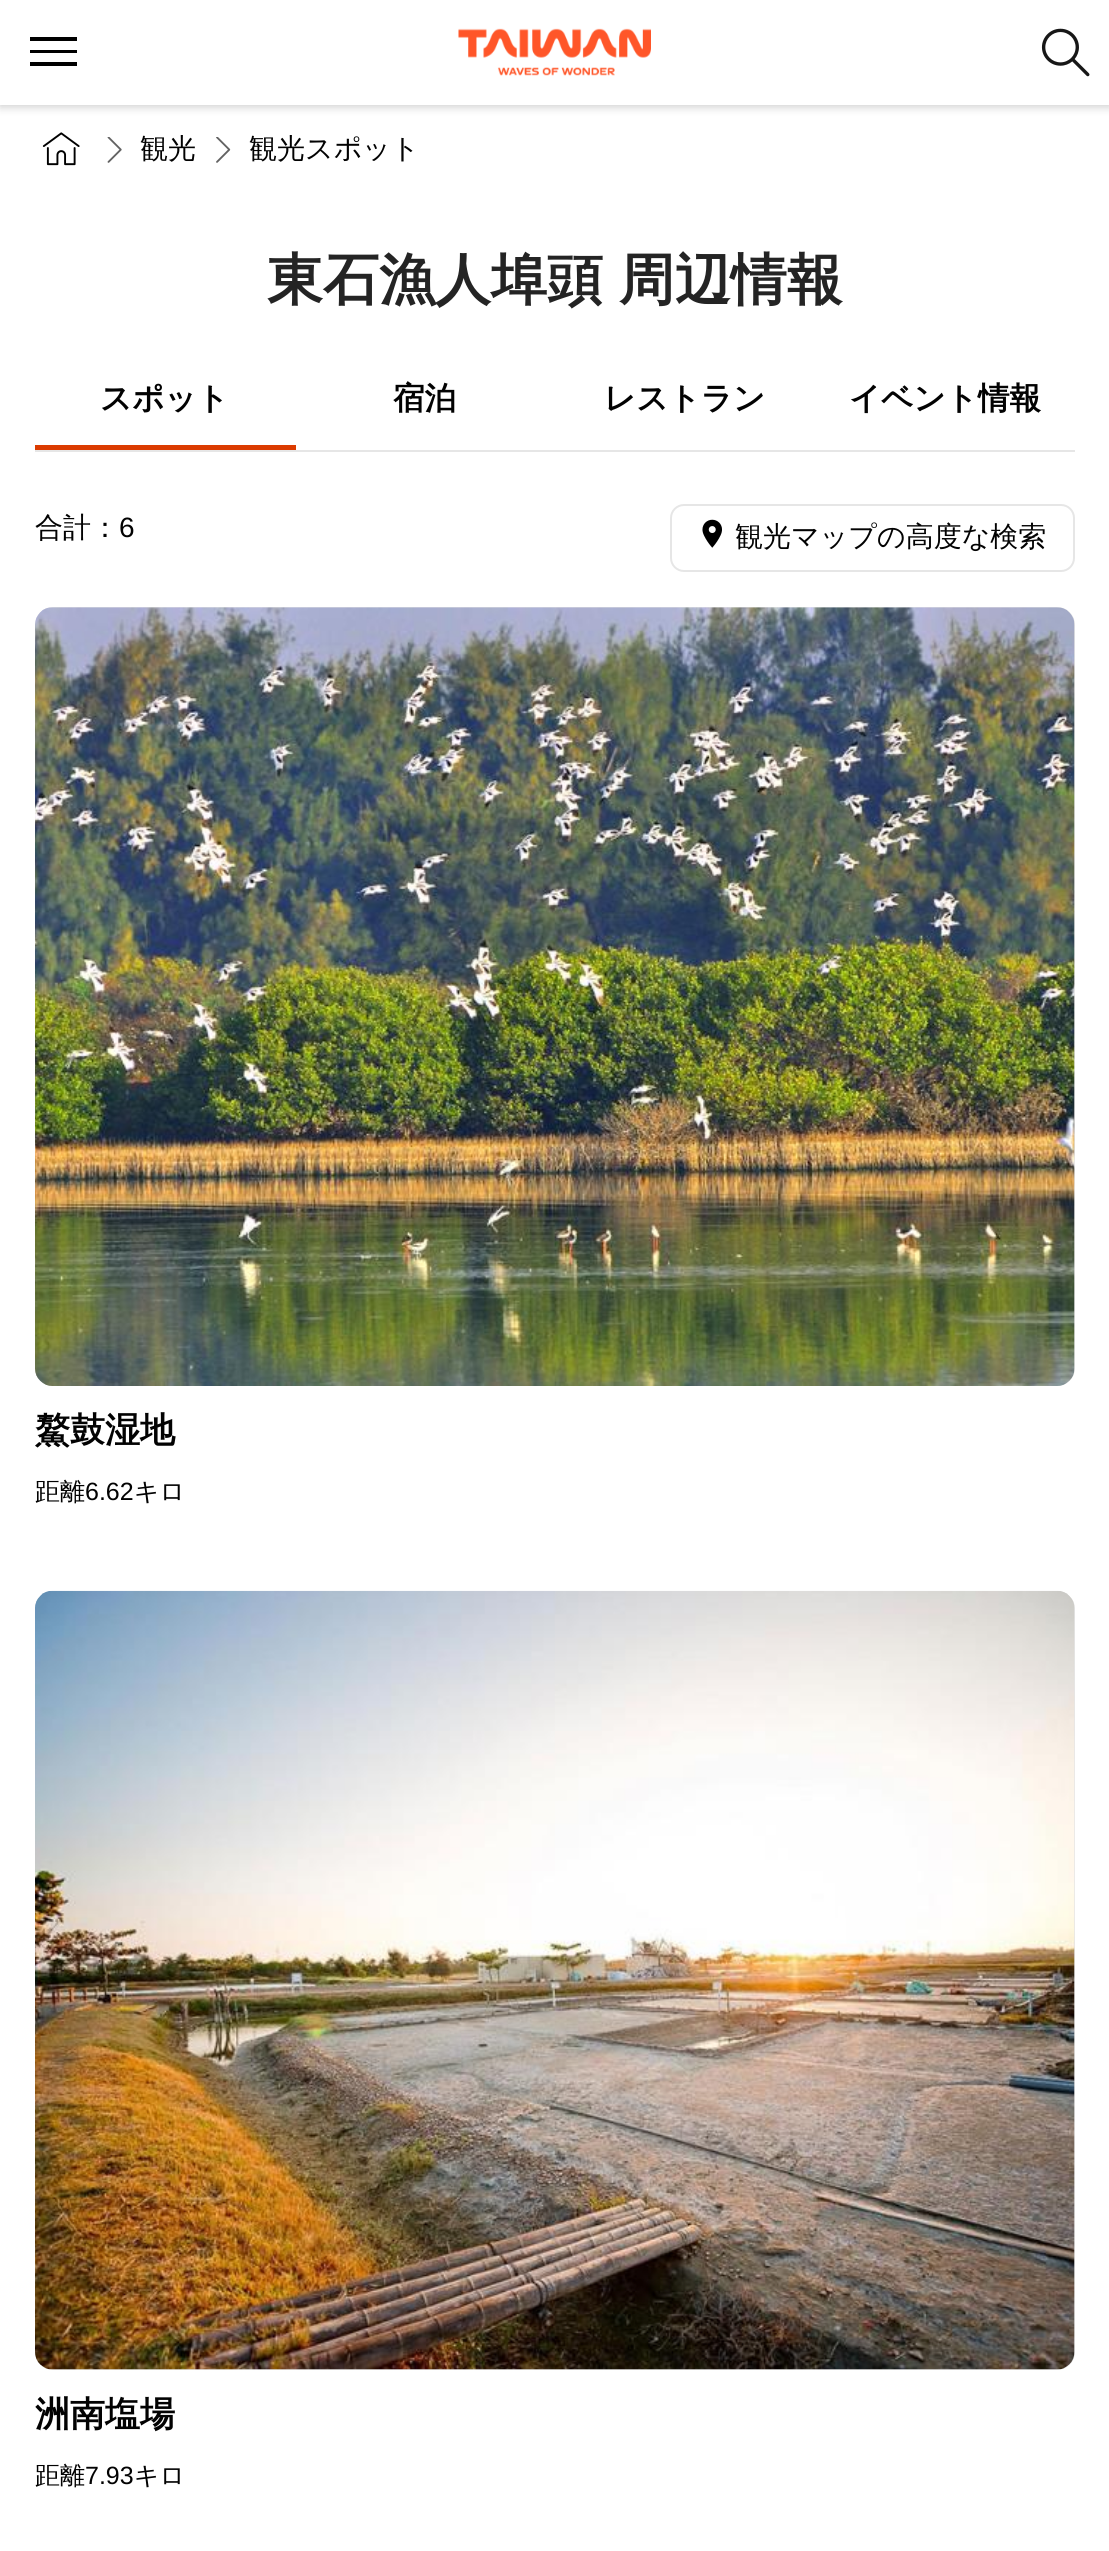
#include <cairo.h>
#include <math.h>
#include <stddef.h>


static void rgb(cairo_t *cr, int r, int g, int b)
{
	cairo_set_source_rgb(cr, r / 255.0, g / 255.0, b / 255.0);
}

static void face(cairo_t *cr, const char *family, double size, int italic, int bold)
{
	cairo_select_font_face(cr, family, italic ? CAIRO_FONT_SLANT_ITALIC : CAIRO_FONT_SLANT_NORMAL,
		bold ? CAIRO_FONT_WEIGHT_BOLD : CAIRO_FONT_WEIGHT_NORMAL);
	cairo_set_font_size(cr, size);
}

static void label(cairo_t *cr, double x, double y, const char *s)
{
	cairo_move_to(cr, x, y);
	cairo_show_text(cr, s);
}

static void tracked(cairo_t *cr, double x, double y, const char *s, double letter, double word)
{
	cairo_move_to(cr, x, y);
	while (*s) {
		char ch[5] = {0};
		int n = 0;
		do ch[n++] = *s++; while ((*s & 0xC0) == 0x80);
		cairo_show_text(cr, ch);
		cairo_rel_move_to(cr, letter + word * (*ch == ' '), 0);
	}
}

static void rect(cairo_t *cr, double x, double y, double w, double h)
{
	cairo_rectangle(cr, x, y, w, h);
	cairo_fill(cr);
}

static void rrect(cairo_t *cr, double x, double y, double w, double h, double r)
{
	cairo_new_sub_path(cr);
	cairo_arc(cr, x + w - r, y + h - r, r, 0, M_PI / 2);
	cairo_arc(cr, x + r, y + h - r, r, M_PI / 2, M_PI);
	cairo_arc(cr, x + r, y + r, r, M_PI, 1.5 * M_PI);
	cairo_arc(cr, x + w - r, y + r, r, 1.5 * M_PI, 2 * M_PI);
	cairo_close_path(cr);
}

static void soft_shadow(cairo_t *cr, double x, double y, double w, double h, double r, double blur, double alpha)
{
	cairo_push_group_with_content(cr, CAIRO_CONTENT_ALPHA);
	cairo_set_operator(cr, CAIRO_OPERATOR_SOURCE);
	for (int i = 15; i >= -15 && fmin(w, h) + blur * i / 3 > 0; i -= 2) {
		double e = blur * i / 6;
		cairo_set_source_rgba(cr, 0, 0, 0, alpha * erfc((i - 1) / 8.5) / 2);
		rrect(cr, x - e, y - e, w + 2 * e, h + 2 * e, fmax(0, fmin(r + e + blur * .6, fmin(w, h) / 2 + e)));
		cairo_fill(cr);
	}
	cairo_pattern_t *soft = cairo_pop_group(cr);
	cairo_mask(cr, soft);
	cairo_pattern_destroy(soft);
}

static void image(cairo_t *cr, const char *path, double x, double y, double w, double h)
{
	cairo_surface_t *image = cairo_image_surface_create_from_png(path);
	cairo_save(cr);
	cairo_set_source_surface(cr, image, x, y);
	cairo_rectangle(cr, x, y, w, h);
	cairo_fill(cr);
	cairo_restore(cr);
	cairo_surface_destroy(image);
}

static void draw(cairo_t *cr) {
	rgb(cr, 255, 255, 255);
	cairo_paint(cr);
	cairo_save(cr);
	cairo_rectangle(cr, 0, 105, 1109, 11);
	cairo_clip(cr);
	rgb(cr, 206, 206, 206);
	soft_shadow(cr, 0, 2, 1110, 105, 0, 4.5, 1);
	cairo_restore(cr);
	rgb(cr, 0, 0, 0);
	rect(cr, 30, 62, 47, 4);
	rect(cr, 30, 50, 47, 3);
	rect(cr, 30, 37, 47, 4);
	image(cr, "image0.png", 458, 28, 193, 48);
	image(cr, "image1.png", 1041, 28, 49, 49);
	image(cr, "image2.png", 42, 132, 38, 34);
	image(cr, "image3.png", 107, 137, 15, 26);
	face(cr, "WenQuanYi Zen Hei Medium", 28, 0, 0);
	rgb(cr, 2, 2, 2);
	label(cr, 140, 158, "観光");
	image(cr, "image4.png", 216, 137, 15, 26);
	label(cr, 249, 158, "観光スポット");
	face(cr, "WenQuanYi Zen Hei", 56, 0, 1);
	rgb(cr, 36, 36, 36);
	tracked(cr, 267, 299, "東石漁人埠頭 周辺情報", 0, -1);
	rgb(cr, 230, 230, 230);
	rect(cr, 35, 450, 1040, 2);
	rgb(cr, 219, 59, 0);
	rect(cr, 35, 445, 261, 5);
	face(cr, "WenQuanYi Zen Hei", 31.5, 0, 1);
	rgb(cr, 2, 2, 2);
	label(cr, 100, 409, "スポット");
	label(cr, 393, 409, "宿泊");
	label(cr, 604, 409, "レストラン");
	label(cr, 849, 409, "イベント情報");
	face(cr, "WenQuanYi Zen Hei Medium", 28, 0, 0);
	label(cr, 35, 537, "合計：");
	face(cr, "Liberation Sans", 28, 0, 0);
	label(cr, 119, 537, "6");
	rrect(cr, 671, 505, 403, 66, 13);
	rgb(cr, 230, 230, 230);
	cairo_stroke(cr);
	image(cr, "image5.png", 702, 519, 20, 29);
	face(cr, "WenQuanYi Zen Hei Medium", 28, 0, 0);
	rgb(cr, 2, 2, 2);
	label(cr, 735, 546, "観光マップの高度な検索");
	rgb(cr, 230, 230, 230);
	rrect(cr, 35, 607, 1040, 779, 18);
	cairo_fill(cr);
	image(cr, "image6.png", 35, 607, 1040, 779);
	face(cr, "WenQuanYi Zen Hei", 35, 0, 1);
	rgb(cr, 2, 2, 2);
	label(cr, 35, 1442, "鰲鼓湿地");
	face(cr, "WenQuanYi Zen Hei Medium", 25, 0, 0);
	label(cr, 35, 1500, "距離");
	face(cr, "Liberation Sans", 25, 0, 0);
	label(cr, 85, 1500, "6.62");
	face(cr, "WenQuanYi Zen Hei Medium", 25, 0, 0);
	label(cr, 134, 1500, "キロ");
	rgb(cr, 230, 230, 230);
	rrect(cr, 35, 1591, 1040, 779, 18);
	cairo_fill(cr);
	image(cr, "image7.png", 35, 1590, 1040, 780);
	face(cr, "WenQuanYi Zen Hei", 35, 0, 1);
	rgb(cr, 2, 2, 2);
	label(cr, 35, 2426, "洲南塩場");
	face(cr, "WenQuanYi Zen Hei Medium", 25, 0, 0);
	label(cr, 35, 2484, "距離");
	face(cr, "Liberation Sans", 25, 0, 0);
	label(cr, 85, 2484, "7.93");
	face(cr, "WenQuanYi Zen Hei Medium", 25, 0, 0);
	label(cr, 134, 2484, "キロ");
}

int main(void) {
	cairo_surface_t *surface = cairo_image_surface_create(CAIRO_FORMAT_RGB24, 1109, 2551);
	cairo_t *cr = cairo_create(surface);
	cairo_font_options_t *options = cairo_font_options_create();
	cairo_font_options_set_hint_metrics(options, CAIRO_HINT_METRICS_OFF);
	cairo_font_options_set_hint_style(options, CAIRO_HINT_STYLE_NONE);
	cairo_set_font_options(cr, options);
	cairo_set_miter_limit(cr, 4);
	draw(cr);
	cairo_surface_write_to_png(surface, "render.png");
	cairo_font_options_destroy(options);
	cairo_destroy(cr);
	cairo_surface_destroy(surface);
	return 0;
}
